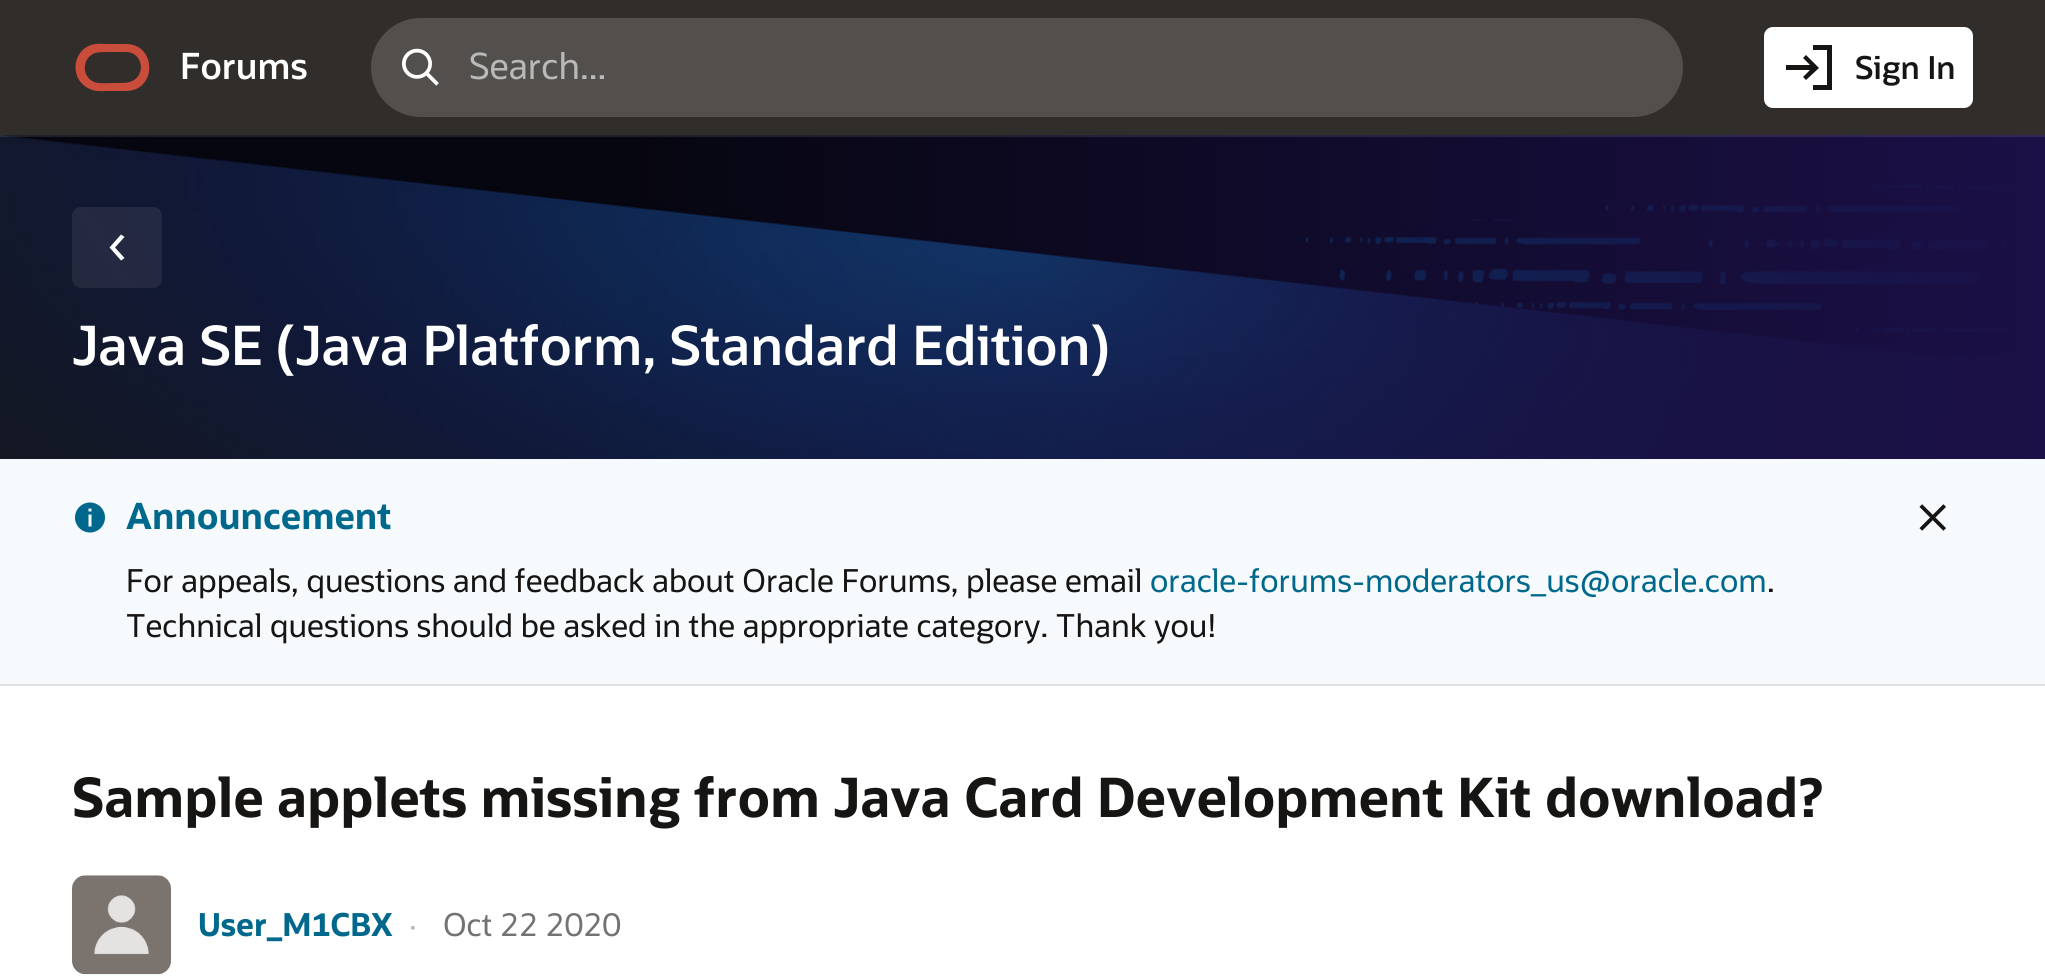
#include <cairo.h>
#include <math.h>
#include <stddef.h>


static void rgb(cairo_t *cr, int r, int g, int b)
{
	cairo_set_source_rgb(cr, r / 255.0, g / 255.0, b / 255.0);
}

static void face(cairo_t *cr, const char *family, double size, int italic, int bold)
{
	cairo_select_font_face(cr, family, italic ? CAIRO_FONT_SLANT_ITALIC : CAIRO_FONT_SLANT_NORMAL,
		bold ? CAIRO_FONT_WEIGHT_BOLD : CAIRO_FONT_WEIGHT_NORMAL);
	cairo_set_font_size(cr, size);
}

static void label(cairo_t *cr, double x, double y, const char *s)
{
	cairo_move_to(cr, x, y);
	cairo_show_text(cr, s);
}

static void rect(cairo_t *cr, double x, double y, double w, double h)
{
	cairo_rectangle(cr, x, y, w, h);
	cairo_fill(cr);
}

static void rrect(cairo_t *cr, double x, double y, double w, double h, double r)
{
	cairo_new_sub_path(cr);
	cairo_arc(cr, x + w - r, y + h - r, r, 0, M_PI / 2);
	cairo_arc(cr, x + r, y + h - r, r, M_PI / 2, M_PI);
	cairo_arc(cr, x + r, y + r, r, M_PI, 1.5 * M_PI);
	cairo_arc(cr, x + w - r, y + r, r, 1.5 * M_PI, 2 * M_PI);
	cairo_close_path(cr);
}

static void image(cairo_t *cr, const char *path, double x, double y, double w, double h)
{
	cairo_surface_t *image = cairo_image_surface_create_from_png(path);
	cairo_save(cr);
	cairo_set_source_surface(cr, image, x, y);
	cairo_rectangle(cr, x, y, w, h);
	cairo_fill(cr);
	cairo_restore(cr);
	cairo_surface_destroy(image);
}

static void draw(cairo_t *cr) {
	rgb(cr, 255, 255, 255);
	cairo_paint(cr);
	image(cr, "image1.png", 0, 135, 2045, 324);
	cairo_rectangle(cr, -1, -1, 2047, 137);
	cairo_set_source_rgba(cr, 1, 1, 1, 0.1);
	cairo_stroke(cr);
	rgb(cr, 49, 45, 42);
	rect(cr, 0, 0, 2045, 135);
	rgb(cr, 202, 77, 60);
	cairo_new_path(cr);
	cairo_move_to(cr, 126, 44);
	cairo_curve_to(cr, 157, 44, 157, 91, 126, 91);
	cairo_line_to(cr, 108, 91);
	cairo_curve_to(cr, 102, 91, 96, 92, 90, 89);
	cairo_curve_to(cr, 70, 81, 71, 52, 91, 45);
	cairo_curve_to(cr, 97, 43, 102, 44, 108, 44);
	cairo_close_path(cr);
	cairo_move_to(cr, 126, 52);
	cairo_line_to(cr, 108, 52);
	cairo_curve_to(cr, 104, 52, 99, 52, 95, 53);
	cairo_curve_to(cr, 82, 58, 81, 76, 94, 82);
	cairo_curve_to(cr, 99, 84, 111, 83, 117, 83);
	cairo_curve_to(cr, 121, 83, 126, 83, 130, 82);
	cairo_curve_to(cr, 147, 76, 143, 52, 126, 52);
	cairo_close_path(cr);
	cairo_fill(cr);
	face(cr, "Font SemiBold", 36, 0, 0);
	rgb(cr, 255, 255, 255);
	label(cr, 180, 79, "Forums");
	rgb(cr, 82, 79, 76);
	rrect(cr, 371, 18, 1312, 99, 49.5);
	cairo_fill(cr);
	image(cr, "image0.png", 402, 48, 37, 38);
	face(cr, "Font", 36, 0, 0);
	rgb(cr, 185, 185, 184);
	label(cr, 469, 79, "Search...");
	rgb(cr, 255, 255, 255);
	rrect(cr, 1764, 27, 209, 81, 9);
	cairo_fill(cr);
	rgb(cr, 22, 21, 19);
	cairo_new_path(cr);
	cairo_move_to(cr, 1832, 45);
	cairo_line_to(cr, 1832, 90);
	cairo_line_to(cr, 1813, 90);
	cairo_line_to(cr, 1813, 85);
	cairo_line_to(cr, 1827, 85);
	cairo_line_to(cr, 1827, 50);
	cairo_line_to(cr, 1813, 50);
	cairo_line_to(cr, 1813, 45);
	cairo_close_path(cr);
	cairo_move_to(cr, 1806, 55);
	cairo_line_to(cr, 1819, 68);
	cairo_line_to(cr, 1806, 80);
	cairo_line_to(cr, 1803, 77);
	cairo_line_to(cr, 1810, 70);
	cairo_line_to(cr, 1786, 70);
	cairo_line_to(cr, 1786, 65);
	cairo_line_to(cr, 1810, 65);
	cairo_line_to(cr, 1803, 58);
	cairo_close_path(cr);
	cairo_fill(cr);
	face(cr, "Font SemiBold", 31.5, 0, 0);
	label(cr, 1855, 79, "Sign In");
	cairo_set_source_rgba(cr, 0.984, 0.976, 0.973, 0.08);
	rrect(cr, 72, 207, 90, 81, 9);
	cairo_fill(cr);
	rgb(cr, 255, 255, 255);
	cairo_new_path(cr);
	cairo_move_to(cr, 124.5, 258);
	cairo_line_to(cr, 121, 260.5);
	cairo_line_to(cr, 109.5, 247.5);
	cairo_line_to(cr, 121, 234.5);
	cairo_line_to(cr, 124.5, 237);
	cairo_line_to(cr, 115, 247.5);
	cairo_close_path(cr);
	cairo_fill(cr);
	face(cr, "Font SemiBold", 54, 0, 0);
	label(cr, 72, 365, "Java SE (Java Platform, Standard Edition)");
	rgb(cr, 246, 250, 252);
	rect(cr, 0, 459, 2045, 225);
	rgb(cr, 224, 227, 229);
	rect(cr, 0, 684, 2045, 2);
	image(cr, "image2.png", 75, 502, 30, 31);
	face(cr, "Font", 36, 0, 1);
	rgb(cr, 0, 104, 140);
	label(cr, 126, 529, "Announcement");
	face(cr, "Font", 31.5, 0, 0);
	rgb(cr, 22, 21, 19);
	label(cr, 126, 592, "For appeals, questions and feedback about Oracle Forums, please email");
	rgb(cr, 0, 104, 140);
	label(cr, 1150, 592, "oracle-forums-moderators_us@oracle.com");
	rgb(cr, 22, 21, 19);
	label(cr, 1767, 592, ".");
	label(cr, 126, 637, "Technical questions should be asked in the appropriate category. Thank you!");
	image(cr, "image3.png", 1919, 504, 27, 27);
	face(cr, "Font", 54, 0, 1);
	label(cr, 72, 817, "Sample applets missing from Java Card Development Kit download?");
	image(cr, "image4.png", 72, 875, 99, 100);
	face(cr, "Font", 31.5, 0, 1);
	rgb(cr, 0, 104, 140);
	label(cr, 198, 936, "User_M1CBX");
	face(cr, "Font", 31.5, 0, 0);
	rgb(cr, 185, 185, 184);
	label(cr, 409, 936, "·");
	rgb(cr, 115, 115, 113);
	label(cr, 443, 936, "Oct 22 2020");
}

int main(void) {
	cairo_surface_t *surface = cairo_image_surface_create(CAIRO_FORMAT_RGB24, 2045, 977);
	cairo_t *cr = cairo_create(surface);
	cairo_font_options_t *options = cairo_font_options_create();
	cairo_font_options_set_hint_metrics(options, CAIRO_HINT_METRICS_OFF);
	cairo_font_options_set_hint_style(options, CAIRO_HINT_STYLE_NONE);
	cairo_set_font_options(cr, options);
	cairo_set_miter_limit(cr, 4);
	draw(cr);
	cairo_surface_write_to_png(surface, "render.png");
	cairo_font_options_destroy(options);
	cairo_destroy(cr);
	cairo_surface_destroy(surface);
	return 0;
}
